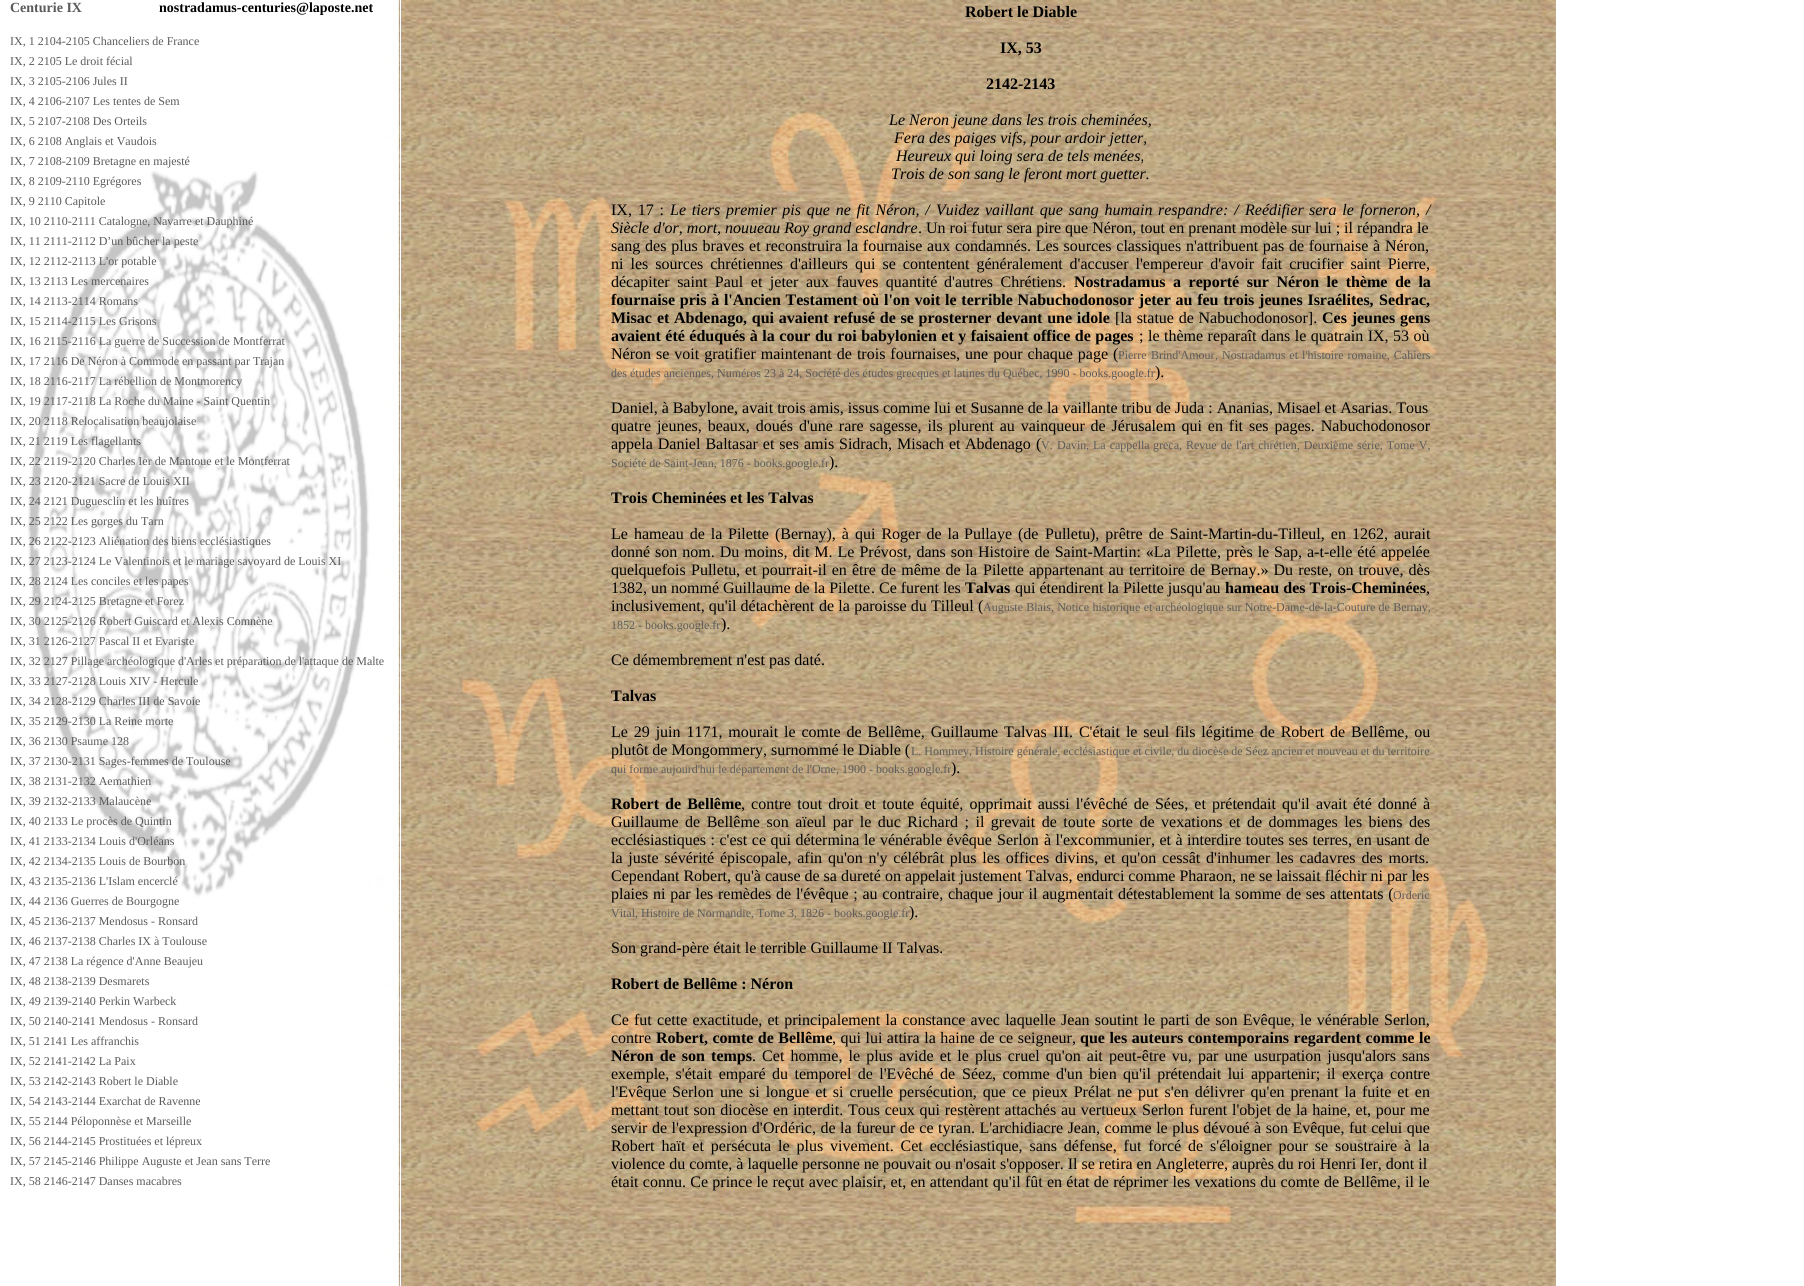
#include <cairo.h>
#include <math.h>
#include <stddef.h>


static void rgb(cairo_t *cr, int r, int g, int b)
{
	cairo_set_source_rgb(cr, r / 255.0, g / 255.0, b / 255.0);
}

static void face(cairo_t *cr, const char *family, double size, int italic, int bold)
{
	cairo_select_font_face(cr, family, italic ? CAIRO_FONT_SLANT_ITALIC : CAIRO_FONT_SLANT_NORMAL,
		bold ? CAIRO_FONT_WEIGHT_BOLD : CAIRO_FONT_WEIGHT_NORMAL);
	cairo_set_font_size(cr, size);
}

static void label(cairo_t *cr, double x, double y, const char *s)
{
	cairo_move_to(cr, x, y);
	cairo_show_text(cr, s);
}

static void tracked(cairo_t *cr, double x, double y, const char *s, double letter, double word)
{
	cairo_move_to(cr, x, y);
	while (*s) {
		char ch[5] = {0};
		int n = 0;
		do ch[n++] = *s++; while ((*s & 0xC0) == 0x80);
		cairo_show_text(cr, ch);
		cairo_rel_move_to(cr, letter + word * (*ch == ' '), 0);
	}
}

static void image(cairo_t *cr, const char *path, double x, double y, double w, double h)
{
	cairo_surface_t *image = cairo_image_surface_create_from_png(path);
	cairo_save(cr);
	cairo_set_source_surface(cr, image, x, y);
	cairo_rectangle(cr, x, y, w, h);
	cairo_fill(cr);
	cairo_restore(cr);
	cairo_surface_destroy(image);
}

static void draw(cairo_t *cr) {
	rgb(cr, 255, 255, 255);
	cairo_paint(cr);
	image(cr, "image0.png", 27, 0, 373, 1286);
	image(cr, "image1.png", 401, 0, 1155, 1286);
	face(cr, "Liberation Serif", 14, 0, 1);
	rgb(cr, 90, 90, 90);
	label(cr, 10, 12, "Centurie IX");
	face(cr, "Liberation Serif", 12, 0, 0);
	label(cr, 10, 45, "IX, 1 2104-2105 Chanceliers de France");
	label(cr, 10, 65, "IX, 2 2105 Le droit fécial");
	label(cr, 10, 85, "IX, 3 2105-2106 Jules II");
	label(cr, 10, 105, "IX, 4 2106-2107 Les tentes de Sem");
	label(cr, 10, 125, "IX, 5 2107-2108 Des Orteils");
	label(cr, 10, 145, "IX, 6 2108 Anglais et Vaudois");
	label(cr, 10, 165, "IX, 7 2108-2109 Bretagne en majesté");
	label(cr, 10, 185, "IX, 8 2109-2110 Egrégores");
	label(cr, 10, 205, "IX, 9 2110 Capitole");
	label(cr, 10, 225, "IX, 10 2110-2111 Catalogne, Navarre et Dauphiné");
	label(cr, 10, 245, "IX, 11 2111-2112 D’un bûcher la peste");
	label(cr, 10, 265, "IX, 12 2112-2113 L'or potable");
	label(cr, 10, 285, "IX, 13 2113 Les mercenaires");
	label(cr, 10, 305, "IX, 14 2113-2114 Romans");
	label(cr, 10, 325, "IX, 15 2114-2115 Les Grisons");
	label(cr, 10, 345, "IX, 16 2115-2116 La guerre de Succession de Montferrat");
	label(cr, 10, 365, "IX, 17 2116 De Néron à Commode en passant par Trajan");
	label(cr, 10, 385, "IX, 18 2116-2117 La rébellion de Montmorency");
	label(cr, 10, 405, "IX, 19 2117-2118 La Roche du Maine - Saint Quentin");
	label(cr, 10, 425, "IX, 20 2118 Relocalisation beaujolaise");
	label(cr, 10, 445, "IX, 21 2119 Les flagellants");
	label(cr, 10, 465, "IX, 22 2119-2120 Charles Ier de Mantoue et le Montferrat");
	label(cr, 10, 485, "IX, 23 2120-2121 Sacre de Louis XII");
	label(cr, 10, 505, "IX, 24 2121 Duguesclin et les huîtres");
	label(cr, 10, 525, "IX, 25 2122 Les gorges du Tarn");
	label(cr, 10, 545, "IX, 26 2122-2123 Aliénation des biens ecclésiastiques");
	label(cr, 10, 565, "IX, 27 2123-2124 Le Valentinois et le mariage savoyard de Louis XI");
	label(cr, 10, 585, "IX, 28 2124 Les conciles et les papes");
	label(cr, 10, 605, "IX, 29 2124-2125 Bretagne et Forez");
	label(cr, 10, 625, "IX, 30 2125-2126 Robert Guiscard et Alexis Comnène");
	label(cr, 10, 645, "IX, 31 2126-2127 Pascal II et Evariste");
	label(cr, 10, 665, "IX, 32 2127 Pillage archéologique d'Arles et préparation de l'attaque de Malte");
	label(cr, 10, 685, "IX, 33 2127-2128 Louis XIV - Hercule");
	label(cr, 10, 705, "IX, 34 2128-2129 Charles III de Savoie");
	label(cr, 10, 725, "IX, 35 2129-2130 La Reine morte");
	label(cr, 10, 745, "IX, 36 2130 Psaume 128");
	label(cr, 10, 765, "IX, 37 2130-2131 Sages-femmes de Toulouse");
	label(cr, 10, 785, "IX, 38 2131-2132 Aemathien");
	label(cr, 10, 805, "IX, 39 2132-2133 Malaucène");
	label(cr, 10, 825, "IX, 40 2133 Le procès de Quintin");
	label(cr, 10, 845, "IX, 41 2133-2134 Louis d'Orléans");
	label(cr, 10, 865, "IX, 42 2134-2135 Louis de Bourbon");
	label(cr, 10, 885, "IX, 43 2135-2136 L'Islam encerclé");
	label(cr, 10, 905, "IX, 44 2136 Guerres de Bourgogne");
	label(cr, 10, 925, "IX, 45 2136-2137 Mendosus - Ronsard");
	label(cr, 10, 945, "IX, 46 2137-2138 Charles IX à Toulouse");
	label(cr, 10, 965, "IX, 47 2138 La régence d'Anne Beaujeu");
	label(cr, 10, 985, "IX, 48 2138-2139 Desmarets");
	label(cr, 10, 1005, "IX, 49 2139-2140 Perkin Warbeck");
	label(cr, 10, 1025, "IX, 50 2140-2141 Mendosus - Ronsard");
	label(cr, 10, 1045, "IX, 51 2141 Les affranchis");
	label(cr, 10, 1065, "IX, 52 2141-2142 La Paix");
	label(cr, 10, 1085, "IX, 53 2142-2143 Robert le Diable");
	label(cr, 10, 1105, "IX, 54 2143-2144 Exarchat de Ravenne");
	label(cr, 10, 1125, "IX, 55 2144 Péloponnèse et Marseille");
	label(cr, 10, 1145, "IX, 56 2144-2145 Prostituées et lépreux");
	label(cr, 10, 1165, "IX, 57 2145-2146 Philippe Auguste et Jean sans Terre");
	label(cr, 10, 1185, "IX, 58 2146-2147 Danses macabres");
	face(cr, "Liberation Serif", 14, 0, 1);
	rgb(cr, 0, 0, 0);
	label(cr, 159, 12, "nostradamus-centuries@laposte.net");
	face(cr, "Liberation Serif", 16, 0, 1);
	label(cr, 965, 17, "Robert le Diable");
	label(cr, 1000, 53, "IX, 53");
	label(cr, 986, 89, "2142-2143");
	face(cr, "Liberation Serif", 16, 1, 0);
	label(cr, 889, 125, "Le Neron jeune dans les trois cheminées,");
	label(cr, 894, 143, "Fera des paiges vifs, pour ardoir jetter,");
	label(cr, 896, 161, "Heureux qui loing sera de tels menées,");
	label(cr, 891, 179, "Trois de son sang le feront mort guetter.");
	face(cr, "Liberation Serif", 16, 0, 0);
	tracked(cr, 611, 215, "IX, 17 :", 0, 1.75);
	face(cr, "Liberation Serif", 16, 1, 0);
	tracked(cr, 670, 215, "Le tiers premier pis que ne fit Néron, /", 0, 1.75);
	label(cr, 936, 215, "Vuidez");
	tracked(cr, 985, 215, "vaillant que sang humain", 0, 1.75);
	label(cr, 1158, 215, "respandre");
	tracked(cr, 1223, 215, ": /", 0, 2);
	label(cr, 1245, 215, "Reédifier");
	tracked(cr, 1309, 215, "sera le", 0, 1.75);
	label(cr, 1360, 215, "forneron");
	tracked(cr, 1416, 215, ", /", 0, 2);
	label(cr, 611, 233, "Siècle d'or, mort, nouueau Roy grand esclandre");
	face(cr, "Liberation Serif", 16, 0, 0);
	label(cr, 918, 233, ". Un roi futur sera pire que Néron, tout en prenant modèle sur lui ; il répandra le");
	tracked(cr, 611, 251, "sang des plus braves et reconstruira la fournaise aux condamnés. Les sources classiques n'attribuent pas de fournaise à Néron,", 0, 0.75);
	tracked(cr, 611, 269, "ni les sources chrétiennes d'ailleurs qui se contentent généralement d'accuser l'empereur d'avoir fait crucifier saint Pierre,", 0, 3);
	tracked(cr, 611, 287, "décapiter saint Paul et jeter", 0, 3.5);
	tracked(cr, 806, 287, "aux fauves quantité", 0, 3.5);
	tracked(cr, 944, 287, "d'autres Chrétiens.", 0, 3.5);
	face(cr, "Liberation Serif", 16, 0, 1);
	tracked(cr, 1074, 287, "Nostradamus a reporté sur Néron le thème de la", 0, 3.5);
	tracked(cr, 611, 305, "fournaise pris à l'Ancien Testament où l'on voit le terrible Nabuchodonosor jeter au feu trois jeunes Israélites,", 0, 0.75);
	label(cr, 1379, 305, "Sedrac,");
	label(cr, 611, 323, "Misac");
	label(cr, 657, 323, "et");
	label(cr, 674, 323, "Abdenago");
	tracked(cr, 743, 323, ", qui avaient refusé de se prosterner devant une idole", 0, 0.75);
	face(cr, "Liberation Serif", 16, 0, 0);
	tracked(cr, 1115, 323, "[la statue de Nabuchodonosor].", 0, 0.75);
	face(cr, "Liberation Serif", 16, 0, 1);
	tracked(cr, 1322, 323, "Ces jeunes gens", 0, 0.75);
	tracked(cr, 611, 341, "avaient été éduqués à la cour du roi babylonien et y faisaient office de pages", 0, 0.5);
	face(cr, "Liberation Serif", 16, 0, 0);
	tracked(cr, 1139, 341, "; le thème reparaît dans le quatrain IX, 53 où", 0, 0.5);
	tracked(cr, 611, 359, "Néron se voit gratifier maintenant de trois fournaises, une pour chaque page (", 0, 1);
	face(cr, "Liberation Serif", 12, 0, 0);
	rgb(cr, 90, 90, 90);
	label(cr, 1118, 359, "Pierre");
	label(cr, 1151, 359, "Brind'Amour");
	tracked(cr, 1215, 359, ", Nostradamus et l'histoire romaine, Cahiers", 0, 1);
	label(cr, 611, 377, "des études anciennes, Numéros 23 à 24, Société des études grecques et latines du Québec, 1990 - books.google.fr");
	face(cr, "Liberation Serif", 16, 0, 0);
	rgb(cr, 0, 0, 0);
	label(cr, 1155, 377, ").");
	label(cr, 611, 413, "Daniel, à Babylone, avait trois amis, issus comme lui et Susanne de la vaillante tribu de Juda : Ananias, Misael et Asarias. Tous");
	tracked(cr, 611, 431, "quatre jeunes, beaux, doués d'une rare sagesse, ils plurent au vainqueur de Jérusalem qui en fit ses pages. Nabuchodonosor", 0, 1.9);
	tracked(cr, 611, 449, "appela Daniel Baltasar et ses amis", 0, 1);
	label(cr, 839, 449, "Sidrach,");
	label(cr, 897, 449, "Misach");
	label(cr, 949, 449, "et");
	label(cr, 965, 449, "Abdenago");
	label(cr, 1036, 449, "(");
	face(cr, "Liberation Serif", 12, 0, 0);
	rgb(cr, 90, 90, 90);
	label(cr, 1041, 449, "V.");
	label(cr, 1057, 449, "Davin");
	tracked(cr, 1086, 449, ", La cappella", 0, 1);
	label(cr, 1153, 449, "greca");
	tracked(cr, 1179, 449, ", Revue de l'art chrétien, Deuxième série, Tome V,", 0, 1);
	label(cr, 611, 467, "Société de Saint-Jean, 1876 - books.google.fr");
	face(cr, "Liberation Serif", 16, 0, 0);
	rgb(cr, 0, 0, 0);
	label(cr, 829, 467, ").");
	face(cr, "Liberation Serif", 16, 0, 1);
	label(cr, 611, 503, "Trois Cheminées et les Talvas");
	face(cr, "Liberation Serif", 16, 0, 0);
	tracked(cr, 611, 539, "Le hameau de la", 0, 2);
	label(cr, 728, 539, "Pilette");
	tracked(cr, 775, 539, "(Bernay), à qui Roger de la", 0, 2);
	label(cr, 964, 539, "Pullaye");
	label(cr, 1018, 539, "(de");
	label(cr, 1045, 539, "Pulletu");
	tracked(cr, 1090, 539, "), prêtre de Saint-Martin-du-Tilleul, en 1262, aurait", 0, 2);
	tracked(cr, 611, 557, "donné son nom. Du moins, dit M. Le Prévost, dans son Histoire de Saint-Martin: «La", 0, 1);
	label(cr, 1176, 557, "Pilette");
	tracked(cr, 1217, 557, ", près le", 0, 1);
	label(cr, 1274, 557, "Sap");
	tracked(cr, 1298, 557, ", a-t-elle été appelée", 0, 1);
	label(cr, 611, 575, "quelquefois");
	label(cr, 691, 575, "Pulletu");
	tracked(cr, 736, 575, ", et pourrait-il en être de même de la", 0, 1.1);
	label(cr, 983, 575, "Pilette");
	tracked(cr, 1029, 575, "appartenant au territoire de Bernay.» Du reste, on trouve, dès", 0, 1.1);
	label(cr, 611, 593, "1382, un nommé Guillaume de la Pilette");
	label(cr, 871, 593, ". Ce furent les");
	face(cr, "Liberation Serif", 16, 0, 1);
	label(cr, 965, 593, "Talvas");
	face(cr, "Liberation Serif", 16, 0, 0);
	label(cr, 1015, 593, "qui étendirent la Pilette jusqu'au");
	face(cr, "Liberation Serif", 16, 0, 1);
	label(cr, 1225, 593, "hameau des Trois-Cheminées");
	face(cr, "Liberation Serif", 16, 0, 0);
	label(cr, 1426, 593, ",");
	label(cr, 611, 611, "inclusivement, qu'il détachèrent");
	tracked(cr, 819, 611, "de la paroisse du Tilleul (", 0, 0.25);
	face(cr, "Liberation Serif", 12, 0, 0);
	rgb(cr, 90, 90, 90);
	tracked(cr, 983, 611, "Auguste Blais, Notice historique et archéologique sur Notre-Dame-de-la-Couture de Bernay,", 0, 0.25);
	label(cr, 611, 629, "1852 - books.google.fr");
	face(cr, "Liberation Serif", 16, 0, 0);
	rgb(cr, 0, 0, 0);
	label(cr, 721, 629, ").");
	label(cr, 611, 665, "Ce démembrement n'est pas daté.");
	face(cr, "Liberation Serif", 16, 0, 1);
	label(cr, 611, 701, "Talvas");
	face(cr, "Liberation Serif", 16, 0, 0);
	tracked(cr, 611, 737, "Le 29 juin 1171, mourait le comte de Bellême, Guillaume", 0, 1.9);
	label(cr, 1004, 737, "Talvas");
	tracked(cr, 1053, 737, "III. C'était le seul fils légitime de Robert de Bellême, ou", 0, 1.9);
	label(cr, 611, 755, "plutôt de Mongommery, surnommé le Diable (");
	face(cr, "Liberation Serif", 12, 0, 0);
	rgb(cr, 90, 90, 90);
	label(cr, 911, 755, "L. Hommey, Histoire générale, ecclésiastique et civile, du diocèse de Séez ancien et nouveau et du territoire");
	label(cr, 611, 773, "qui forme aujourd'hui le département de l'Orne, 1900 - books.google.fr");
	face(cr, "Liberation Serif", 16, 0, 0);
	rgb(cr, 0, 0, 0);
	label(cr, 951, 773, ").");
	face(cr, "Liberation Serif", 16, 0, 1);
	tracked(cr, 611, 809, "Robert de Bellême", 0, 2.1);
	face(cr, "Liberation Serif", 16, 0, 0);
	tracked(cr, 741, 809, ", contre tout droit et toute équité, opprimait aussi l'évêché de Sées, et prétendait qu'il avait été donné à", 0, 2.1);
	tracked(cr, 611, 827, "Guillaume de Bellême son aïeul par le duc Richard ; il grevait de toute sorte de vexations et de dommages les biens des", 0, 2.5);
	tracked(cr, 611, 845, "ecclésiastiques : c'est ce qui détermina le vénérable évêque", 0, 0.5);
	label(cr, 997, 845, "Serlon");
	tracked(cr, 1044, 845, "à l'excommunier, et à interdire toutes ses terres, en usant de", 0, 0.5);
	tracked(cr, 611, 863, "la juste sévérité épiscopale, afin qu'on n'y célébrât plus les offices divins, et qu'on cessât d'inhumer les cadavres des morts.", 0, 1.8);
	label(cr, 611, 881, "Cependant Robert, qu'à cause de sa dureté on appelait justement Talvas, endurci comme Pharaon, ne se laissait fléchir ni par les");
	tracked(cr, 611, 899, "plaies ni par les remèdes de l'évêque ; au contraire, chaque jour il augmentait détestablement la somme de ses attentats (", 0, 0.75);
	face(cr, "Liberation Serif", 12, 0, 0);
	rgb(cr, 90, 90, 90);
	label(cr, 1393, 899, "Orderic");
	label(cr, 611, 917, "Vital, Histoire de Normandie, Tome 3, 1826 - books.google.fr");
	face(cr, "Liberation Serif", 16, 0, 0);
	rgb(cr, 0, 0, 0);
	label(cr, 909, 917, ").");
	label(cr, 611, 953, "Son grand-père était le terrible Guillaume II Talvas.");
	face(cr, "Liberation Serif", 16, 0, 1);
	label(cr, 611, 989, "Robert de Bellême : Néron");
	face(cr, "Liberation Serif", 16, 0, 0);
	tracked(cr, 611, 1025, "Ce fut cette exactitude, et principalement la constance avec laquelle Jean soutint le parti de son Evêque, le vénérable", 0, 1.25);
	label(cr, 1384, 1025, "Serlon,");
	label(cr, 611, 1043, "contre");
	face(cr, "Liberation Serif", 16, 0, 1);
	tracked(cr, 656, 1043, "Robert, comte de Bellême", 0, 0.5);
	face(cr, "Liberation Serif", 16, 0, 0);
	tracked(cr, 832, 1043, ", qui lui attira la haine de ce seigneur,", 0, 0.5);
	face(cr, "Liberation Serif", 16, 0, 1);
	tracked(cr, 1080, 1043, "que les auteurs contemporains regardent comme le", 0, 0.5);
	tracked(cr, 611, 1061, "Néron de son temps", 0, 2.1);
	face(cr, "Liberation Serif", 16, 0, 0);
	tracked(cr, 752, 1061, ". Cet homme, le plus avide et le plus cruel qu'on ait peut-être vu, par une usurpation jusqu'alors sans", 0, 2.1);
	tracked(cr, 611, 1079, "exemple, s'était emparé du temporel de l'Evêché de", 0, 2.4);
	label(cr, 962, 1079, "Séez");
	tracked(cr, 992, 1079, ", comme d'un bien qu'il prétendait lui appartenir; il exerça contre", 0, 2.4);
	label(cr, 611, 1097, "l'Evêque");
	label(cr, 672, 1097, "Serlon");
	tracked(cr, 720, 1097, "une si longue et si cruelle persécution, que ce pieux Prélat ne put s'en délivrer qu'en prenant la fuite et en", 0, 2);
	tracked(cr, 611, 1115, "mettant tout son diocèse en interdit. Tous ceux qui restèrent attachés au vertueux", 0, 0.75);
	label(cr, 1142, 1115, "Serlon");
	tracked(cr, 1189, 1115, "furent l'objet de la haine, et, pour me", 0, 0.75);
	tracked(cr, 611, 1133, "servir de l'expression d'", 0, 0.5);
	label(cr, 763, 1133, "Ordéric");
	tracked(cr, 812, 1133, ", de la fureur de ce tyran. L'archidiacre Jean, comme le plus dévoué à son Evêque, fut celui que", 0, 0.5);
	tracked(cr, 611, 1151, "Robert haït et persécuta le plus vivement. Cet ecclésiastique, sans défense, fut forcé de s'éloigner pour se soustraire à la", 0, 2.9);
	label(cr, 611, 1169, "violence du comte, à laquelle personne ne pouvait ou n'osait s'opposer. Il se retira en Angleterre, auprès du roi Henri Ier, dont il");
	tracked(cr, 611, 1187, "était connu. Ce prince le reçut avec plaisir, et, en attendant qu'il fût en état de réprimer les vexations du comte de Bellême, il le", 0, 0.3);
}

int main(void) {
	cairo_surface_t *surface = cairo_image_surface_create(CAIRO_FORMAT_RGB24, 1804, 1286);
	cairo_t *cr = cairo_create(surface);
	cairo_font_options_t *options = cairo_font_options_create();
	cairo_font_options_set_hint_metrics(options, CAIRO_HINT_METRICS_OFF);
	cairo_font_options_set_hint_style(options, CAIRO_HINT_STYLE_NONE);
	cairo_set_font_options(cr, options);
	cairo_set_miter_limit(cr, 4);
	draw(cr);
	cairo_surface_write_to_png(surface, "render.png");
	cairo_font_options_destroy(options);
	cairo_destroy(cr);
	cairo_surface_destroy(surface);
	return 0;
}
